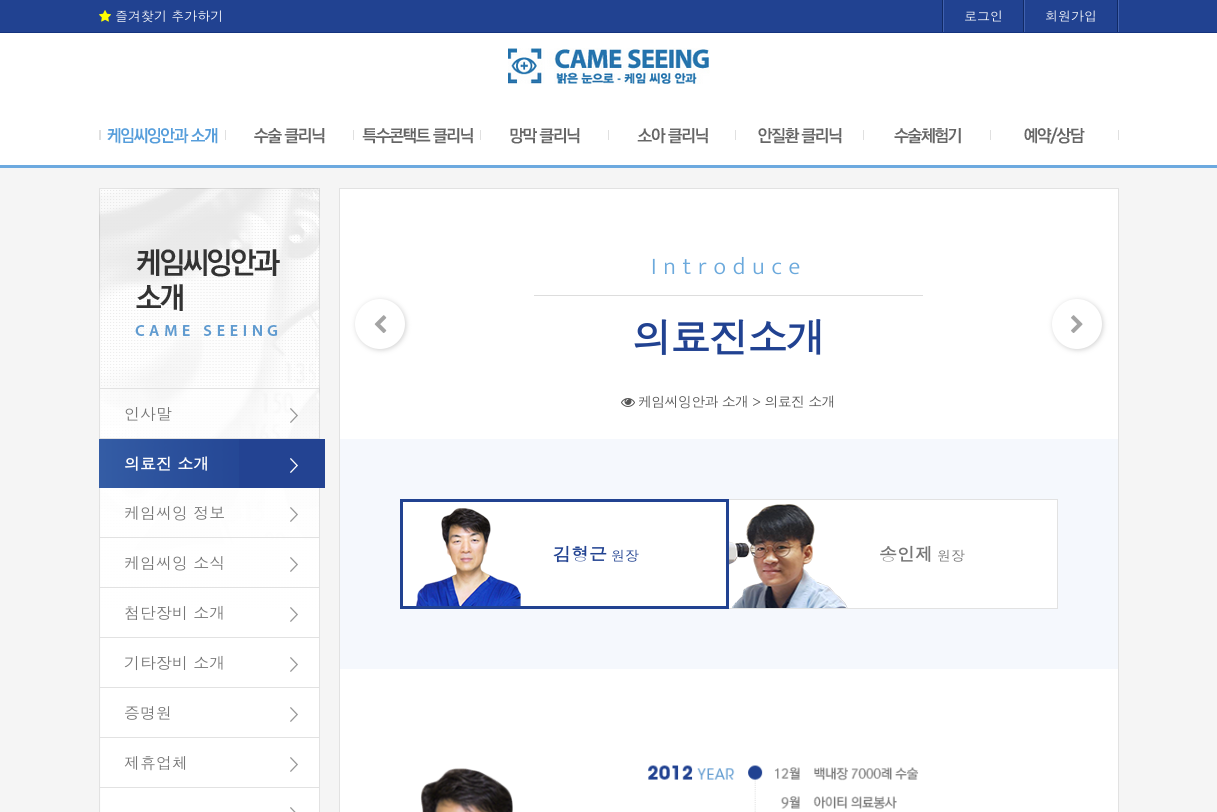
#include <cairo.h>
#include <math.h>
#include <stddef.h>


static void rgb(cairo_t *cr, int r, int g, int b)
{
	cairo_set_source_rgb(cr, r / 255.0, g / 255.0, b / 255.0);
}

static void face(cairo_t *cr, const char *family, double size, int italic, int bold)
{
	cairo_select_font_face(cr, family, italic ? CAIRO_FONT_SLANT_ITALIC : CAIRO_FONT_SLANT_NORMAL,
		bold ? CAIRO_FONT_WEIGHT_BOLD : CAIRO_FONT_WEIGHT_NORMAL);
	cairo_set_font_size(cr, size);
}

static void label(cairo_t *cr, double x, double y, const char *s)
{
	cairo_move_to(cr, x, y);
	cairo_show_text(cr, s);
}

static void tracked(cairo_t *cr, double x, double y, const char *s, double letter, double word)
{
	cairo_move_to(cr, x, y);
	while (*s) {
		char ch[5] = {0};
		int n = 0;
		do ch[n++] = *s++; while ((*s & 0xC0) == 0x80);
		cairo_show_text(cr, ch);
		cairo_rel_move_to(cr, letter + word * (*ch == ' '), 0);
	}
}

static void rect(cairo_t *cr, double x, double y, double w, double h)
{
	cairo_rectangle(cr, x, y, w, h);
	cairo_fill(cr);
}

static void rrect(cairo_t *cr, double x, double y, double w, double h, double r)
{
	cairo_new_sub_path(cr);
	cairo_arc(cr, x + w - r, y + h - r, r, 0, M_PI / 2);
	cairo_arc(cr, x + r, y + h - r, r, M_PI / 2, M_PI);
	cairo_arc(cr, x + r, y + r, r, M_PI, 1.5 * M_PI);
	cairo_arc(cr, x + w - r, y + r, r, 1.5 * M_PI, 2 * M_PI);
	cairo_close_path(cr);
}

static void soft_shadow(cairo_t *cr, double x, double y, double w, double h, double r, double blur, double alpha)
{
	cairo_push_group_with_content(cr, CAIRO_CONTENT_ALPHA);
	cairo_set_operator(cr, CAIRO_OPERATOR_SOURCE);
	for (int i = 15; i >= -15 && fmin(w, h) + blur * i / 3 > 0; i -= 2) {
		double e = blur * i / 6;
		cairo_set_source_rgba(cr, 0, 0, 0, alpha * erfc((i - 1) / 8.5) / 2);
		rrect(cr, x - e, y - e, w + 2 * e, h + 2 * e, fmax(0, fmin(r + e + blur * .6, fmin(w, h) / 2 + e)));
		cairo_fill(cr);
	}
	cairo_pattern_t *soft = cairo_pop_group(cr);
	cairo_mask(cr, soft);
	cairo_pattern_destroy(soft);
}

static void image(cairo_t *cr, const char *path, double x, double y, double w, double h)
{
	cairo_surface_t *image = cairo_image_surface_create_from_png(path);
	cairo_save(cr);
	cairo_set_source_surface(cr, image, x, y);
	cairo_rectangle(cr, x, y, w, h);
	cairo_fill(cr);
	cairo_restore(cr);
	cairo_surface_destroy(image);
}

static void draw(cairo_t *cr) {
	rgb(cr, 255, 255, 255);
	cairo_paint(cr);
	rgb(cr, 108, 169, 223);
	rect(cr, 0, 165, 1217, 3);
	rgb(cr, 33, 66, 145);
	rect(cr, 0, 0, 1217, 32);
	rgb(cr, 20, 51, 126);
	rect(cr, 0, 32, 1217, 1);
	image(cr, "image0.png", 99, 10, 12, 12);
	face(cr, "Dotum", 13, 0, 0);
	rgb(cr, 255, 255, 255);
	label(cr, 115, 21, "즐겨찾기 추가하기");
	rgb(cr, 65, 98, 176);
	rect(cr, 1118, 0, 1, 32);
	rgb(cr, 17, 42, 101);
	rect(cr, 942, 0, 1, 32);
	rect(cr, 1023, 0, 1, 32);
	rgb(cr, 65, 98, 176);
	rect(cr, 943, 0, 1, 32);
	rgb(cr, 255, 255, 255);
	label(cr, 964, 21, "로그인");
	rgb(cr, 17, 42, 101);
	rect(cr, 1117, 0, 1, 32);
	rgb(cr, 65, 98, 176);
	rect(cr, 1024, 0, 1, 32);
	rgb(cr, 255, 255, 255);
	label(cr, 1045, 21, "회원가입");
	image(cr, "image1.png", 508, 48, 202, 36);
	rgb(cr, 224, 224, 224);
	rect(cr, 99, 130, 2, 10);
	rect(cr, 225, 130, 1, 10);
	image(cr, "image2.png", 107, 128, 111, 16);
	rect(cr, 353, 130, 1, 10);
	image(cr, "image3.png", 254, 128, 71, 16);
	rect(cr, 480, 130, 1, 10);
	image(cr, "image4.png", 362, 128, 111, 16);
	rect(cr, 608, 130, 1, 10);
	image(cr, "image5.png", 510, 128, 70, 16);
	rect(cr, 735, 130, 1, 10);
	image(cr, "image6.png", 637, 128, 71, 16);
	rect(cr, 863, 130, 1, 10);
	image(cr, "image7.png", 758, 128, 84, 16);
	rect(cr, 990, 130, 1, 10);
	image(cr, "image8.png", 894, 128, 67, 16);
	rect(cr, 1118, 130, 1, 10);
	image(cr, "image9.png", 1024, 127, 61, 17);
	rgb(cr, 245, 245, 245);
	rect(cr, 0, 168, 1217, 644);
	image(cr, "image10.png", 99, 188, 221, 624);
	image(cr, "image11.png", 135, 249, 145, 87);
	image(cr, "image12.png", 290, 408, 8, 15);
	rgb(cr, 226, 226, 226);
	rect(cr, 99, 388, 220, 1);
	rect(cr, 99, 438, 220, 1);
	face(cr, "Dotum", 16, 0, 0);
	rgb(cr, 118, 118, 118);
	label(cr, 124, 420, "인사말");
	rgb(cr, 35, 67, 146);
	rect(cr, 99, 439, 226, 49);
	image(cr, "image13.png", 99, 439, 140, 49);
	image(cr, "image14.png", 290, 458, 8, 15);
	face(cr, "Dotum", 16, 0, 1);
	rgb(cr, 255, 255, 255);
	label(cr, 124, 470, "의료진 소개");
	image(cr, "image15.png", 290, 507, 8, 15);
	rgb(cr, 226, 226, 226);
	rect(cr, 99, 537, 220, 1);
	face(cr, "Dotum", 16, 0, 0);
	rgb(cr, 118, 118, 118);
	label(cr, 124, 519, "케임씨잉 정보");
	image(cr, "image16.png", 290, 557, 8, 15);
	rgb(cr, 226, 226, 226);
	rect(cr, 99, 587, 220, 1);
	rgb(cr, 118, 118, 118);
	label(cr, 124, 569, "케임씨잉 소식");
	image(cr, "image17.png", 290, 607, 8, 15);
	rgb(cr, 226, 226, 226);
	rect(cr, 99, 637, 220, 1);
	rgb(cr, 118, 118, 118);
	label(cr, 124, 619, "첨단장비 소개");
	image(cr, "image18.png", 290, 657, 8, 15);
	rgb(cr, 226, 226, 226);
	rect(cr, 99, 687, 220, 1);
	rgb(cr, 118, 118, 118);
	label(cr, 124, 669, "기타장비 소개");
	image(cr, "image18.png", 290, 707, 8, 15);
	rgb(cr, 226, 226, 226);
	rect(cr, 99, 737, 220, 1);
	rgb(cr, 118, 118, 118);
	label(cr, 124, 719, "증명원");
	image(cr, "image18.png", 290, 757, 8, 15);
	rgb(cr, 226, 226, 226);
	rect(cr, 99, 787, 220, 1);
	rgb(cr, 118, 118, 118);
	label(cr, 124, 769, "제휴업체");
	image(cr, "image19.png", 290, 807, 6, 5);
	rgb(cr, 255, 255, 255);
	cairo_rectangle(cr, 339.5, 188.5, 779, 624);
	cairo_fill_preserve(cr);
	rgb(cr, 226, 226, 226);
	cairo_set_line_width(cr, 1);
	cairo_stroke(cr);
	face(cr, "Ek Mukta Light", 24, 0, 0);
	rgb(cr, 107, 169, 220);
	tracked(cr, 651, 274, "Introduce", 6.75, 0);
	rgb(cr, 221, 221, 221);
	rect(cr, 534, 295, 389, 1);
	face(cr, "Dotum", 40, 0, 1);
	rgb(cr, 33, 66, 145);
	tracked(cr, 632, 353, "의료진소개", -1.5, 0);
	rgb(cr, 209, 209, 209);
	soft_shadow(cr, 356, 300, 50, 50, 25, 2.5, 1);
	rgb(cr, 255, 255, 255);
	cairo_arc(cr, 380, 324, 25, 0, 2 * M_PI);
	cairo_fill(cr);
	image(cr, "image20.png", 374, 315, 13, 18);
	rgb(cr, 209, 209, 209);
	soft_shadow(cr, 1053, 300, 50, 50, 25, 2.5, 1);
	rgb(cr, 255, 255, 255);
	cairo_arc(cr, 1077, 324, 25, 0, 2 * M_PI);
	cairo_fill(cr);
	image(cr, "image21.png", 1071, 315, 12, 18);
	image(cr, "image22.png", 621, 398, 14, 9);
	face(cr, "Dotum", 14, 0, 0);
	rgb(cr, 84, 84, 84);
	tracked(cr, 638, 407, "케임씨잉안과 소개 > 의료진 소개", -0.7, 0);
	rgb(cr, 245, 248, 253);
	rect(cr, 340, 439, 778, 230);
	rgb(cr, 255, 255, 255);
	rect(cr, 403, 502, 323, 104);
	image(cr, "image23.png", 416, 508, 105, 98);
	cairo_rectangle(cr, 401.5, 500.5, 326, 107);
	rgb(cr, 33, 66, 145);
	cairo_set_line_width(cr, 3);
	cairo_stroke(cr);
	face(cr, "Dotum", 18, 0, 1);
	label(cr, 553, 561, "김형근");
	face(cr, "Dotum", 14, 0, 0);
	label(cr, 611, 561, "원장");
	rgb(cr, 255, 255, 255);
	rect(cr, 729, 500, 328, 108);
	image(cr, "image24.png", 729, 504, 119, 104);
	rgb(cr, 226, 226, 226);
	rect(cr, 729, 499, 329, 1);
	rect(cr, 1057, 499, 1, 110);
	rect(cr, 729, 608, 329, 1);
	face(cr, "Dotum", 18, 0, 1);
	rgb(cr, 118, 118, 118);
	label(cr, 879, 561, "송인제");
	face(cr, "Dotum", 14, 0, 0);
	label(cr, 937, 561, "원장");
	image(cr, "image25.png", 420, 765, 499, 47);
}

int main(void) {
	cairo_surface_t *surface = cairo_image_surface_create(CAIRO_FORMAT_RGB24, 1217, 812);
	cairo_t *cr = cairo_create(surface);
	cairo_font_options_t *options = cairo_font_options_create();
	cairo_font_options_set_hint_metrics(options, CAIRO_HINT_METRICS_OFF);
	cairo_font_options_set_hint_style(options, CAIRO_HINT_STYLE_NONE);
	cairo_set_font_options(cr, options);
	cairo_set_miter_limit(cr, 4);
	draw(cr);
	cairo_surface_write_to_png(surface, "render.png");
	cairo_font_options_destroy(options);
	cairo_destroy(cr);
	cairo_surface_destroy(surface);
	return 0;
}
